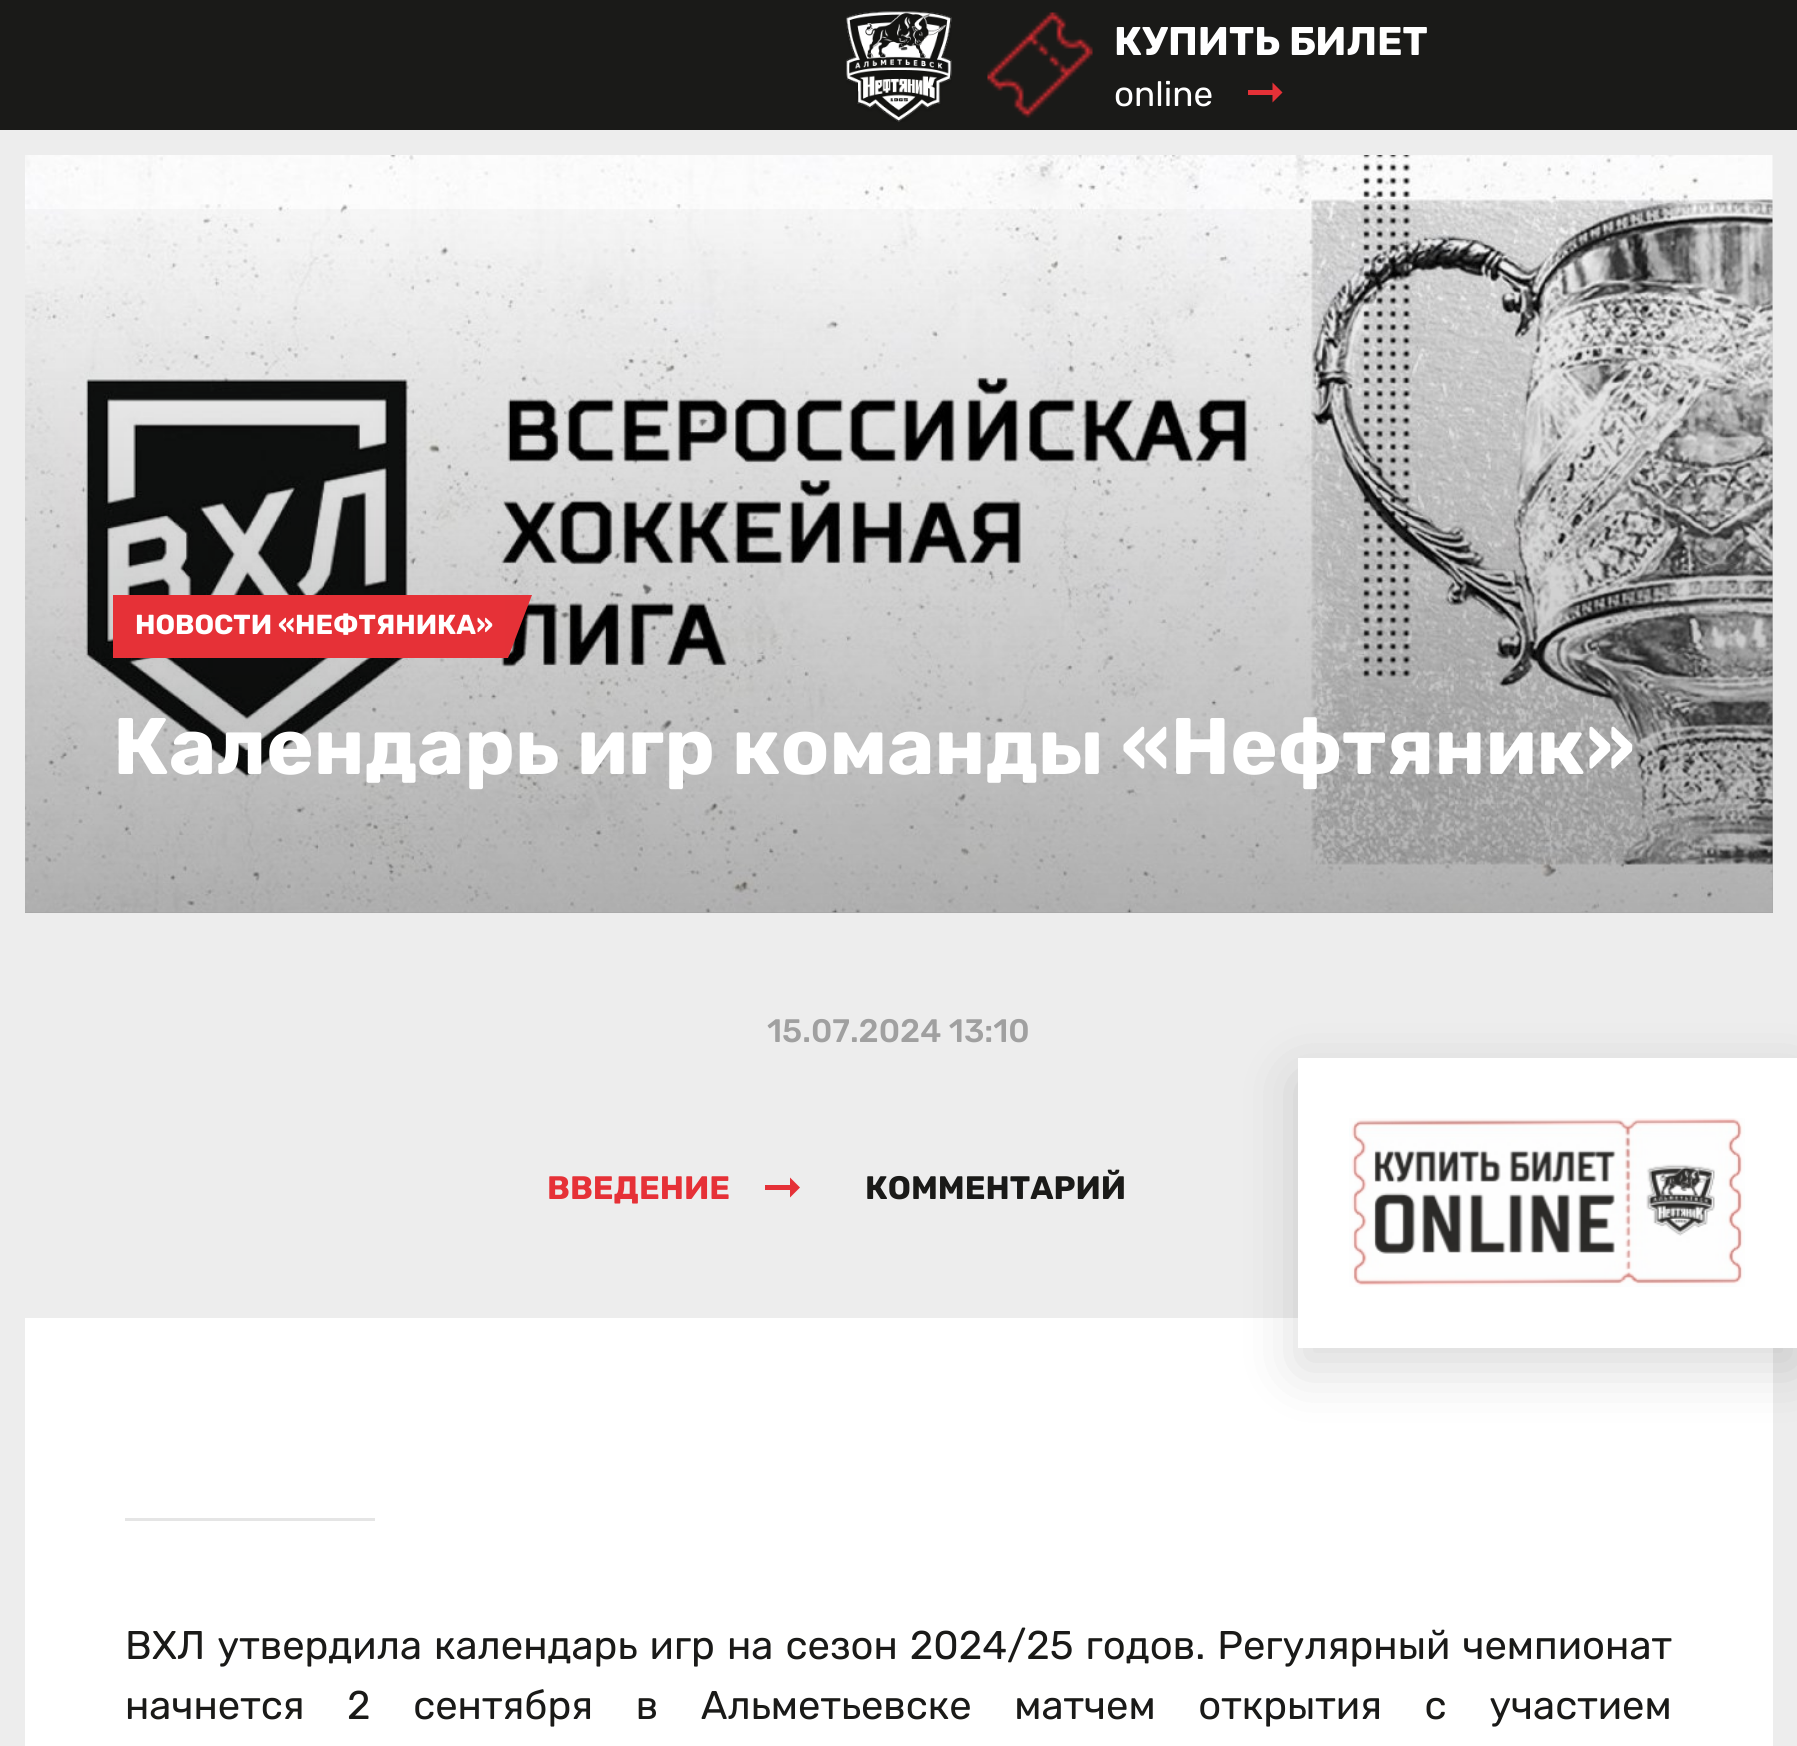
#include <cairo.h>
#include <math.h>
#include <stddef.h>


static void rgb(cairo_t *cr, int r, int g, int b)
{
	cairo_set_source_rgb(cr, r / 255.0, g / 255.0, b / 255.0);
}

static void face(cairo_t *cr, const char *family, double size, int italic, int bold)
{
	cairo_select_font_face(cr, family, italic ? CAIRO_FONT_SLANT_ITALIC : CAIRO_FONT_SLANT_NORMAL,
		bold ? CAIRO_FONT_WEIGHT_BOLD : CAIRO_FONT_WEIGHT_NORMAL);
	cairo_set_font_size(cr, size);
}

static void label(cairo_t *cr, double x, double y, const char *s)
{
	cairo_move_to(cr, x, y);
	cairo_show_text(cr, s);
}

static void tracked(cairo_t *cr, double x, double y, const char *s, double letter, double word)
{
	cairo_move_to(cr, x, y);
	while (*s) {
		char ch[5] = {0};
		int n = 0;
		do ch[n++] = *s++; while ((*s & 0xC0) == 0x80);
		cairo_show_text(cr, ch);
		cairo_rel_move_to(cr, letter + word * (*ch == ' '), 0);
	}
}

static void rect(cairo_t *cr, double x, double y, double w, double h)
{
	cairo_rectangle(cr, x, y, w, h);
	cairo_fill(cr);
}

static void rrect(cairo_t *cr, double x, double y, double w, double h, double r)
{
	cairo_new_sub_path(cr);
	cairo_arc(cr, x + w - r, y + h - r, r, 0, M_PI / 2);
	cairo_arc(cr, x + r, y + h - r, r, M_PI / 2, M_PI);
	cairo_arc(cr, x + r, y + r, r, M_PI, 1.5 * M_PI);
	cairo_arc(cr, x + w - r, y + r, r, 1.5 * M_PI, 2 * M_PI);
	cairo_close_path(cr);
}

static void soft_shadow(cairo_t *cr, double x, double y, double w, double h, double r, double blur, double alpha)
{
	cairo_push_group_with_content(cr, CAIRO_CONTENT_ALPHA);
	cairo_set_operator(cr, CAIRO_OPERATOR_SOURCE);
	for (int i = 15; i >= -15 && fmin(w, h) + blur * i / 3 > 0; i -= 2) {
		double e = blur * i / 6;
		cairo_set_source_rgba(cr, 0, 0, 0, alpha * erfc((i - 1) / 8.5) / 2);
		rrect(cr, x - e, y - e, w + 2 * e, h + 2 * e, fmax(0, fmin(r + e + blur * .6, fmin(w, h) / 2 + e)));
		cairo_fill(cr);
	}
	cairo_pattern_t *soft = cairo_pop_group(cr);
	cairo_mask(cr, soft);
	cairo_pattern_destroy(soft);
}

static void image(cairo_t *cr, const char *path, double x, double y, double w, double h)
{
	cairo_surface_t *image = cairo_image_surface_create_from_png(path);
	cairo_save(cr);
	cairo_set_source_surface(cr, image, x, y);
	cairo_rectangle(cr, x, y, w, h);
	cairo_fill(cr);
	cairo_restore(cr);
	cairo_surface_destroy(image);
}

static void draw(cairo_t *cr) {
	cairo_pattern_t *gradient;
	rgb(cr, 237, 237, 237);
	cairo_paint(cr);
	rgb(cr, 26, 26, 24);
	rect(cr, 0, 0, 1797, 130);
	image(cr, "image0.png", 846, 11, 106, 111);
	image(cr, "image1.png", 987, 12, 106, 106);
	face(cr, "Rubik", 40, 0, 1);
	rgb(cr, 255, 255, 255);
	label(cr, 1114, 55, "КУПИТЬ БИЛЕТ");
	face(cr, "Rubik", 35, 0, 0);
	label(cr, 1114, 106, "online");
	rgb(cr, 229, 49, 55);
	rect(cr, 1248, 90, 25, 5);
	cairo_new_path(cr);
	cairo_move_to(cr, 1272.5, 82.5);
	cairo_line_to(cr, 1272.5, 102.5);
	cairo_line_to(cr, 1282.5, 92.5);
	cairo_close_path(cr);
	cairo_fill(cr);
	image(cr, "image2.png", 25, 155, 1748, 758);
	gradient = cairo_pattern_create_linear(899, 913, 899, 155);
	cairo_pattern_add_color_stop_rgba(gradient, 0, 0, 0, 0, 0.3);
	cairo_pattern_add_color_stop_rgba(gradient, 1, 0, 0, 0, 0);
	cairo_set_source(cr, gradient);
	cairo_pattern_destroy(gradient);
	rect(cr, 25, 209, 1748, 704);
	rgb(cr, 230, 49, 55);
	rect(cr, 113, 595, 392, 63);
	face(cr, "Rubik", 27.5, 0, 1);
	rgb(cr, 255, 255, 255);
	label(cr, 135, 634, "НОВОСТИ «НЕФТЯНИКА»");
	cairo_save(cr);
	cairo_rectangle(cr, 505, 595, 28, 63);
	cairo_clip(cr);
	rgb(cr, 229, 49, 55);
	cairo_new_path(cr);
	cairo_move_to(cr, 308, 595);
	cairo_line_to(cr, 532, 595);
	cairo_line_to(cr, 508, 658);
	cairo_line_to(cr, 308, 658);
	cairo_close_path(cr);
	cairo_fill(cr);
	cairo_restore(cr);
	face(cr, "Rubik", 80, 0, 1);
	label(cr, 113, 774, "Календарь игр команды «Нефтяник»");
	rect(cr, 25, 1318, 1748, 428);
	rgb(cr, 0, 0, 0);
	soft_shadow(cr, 1298, 1078, 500, 290, 0, 30, 0.15);
	rgb(cr, 255, 255, 255);
	rect(cr, 1298, 1058, 499, 290);
	image(cr, "image3.png", 1349, 1118, 396, 169);
	face(cr, "Rubik Medium", 32.5, 0, 0);
	rgb(cr, 160, 160, 160);
	label(cr, 767, 1042, "15.07.2024 13:10");
	face(cr, "Rubik", 32.5, 0, 1);
	rgb(cr, 230, 49, 55);
	label(cr, 547, 1199, "ВВЕДЕНИЕ");
	rgb(cr, 229, 49, 55);
	rect(cr, 765, 1185, 25, 5);
	cairo_new_path(cr);
	cairo_move_to(cr, 790, 1177.5);
	cairo_line_to(cr, 790, 1197.5);
	cairo_line_to(cr, 800, 1187.5);
	cairo_close_path(cr);
	cairo_fill(cr);
	rgb(cr, 26, 26, 24);
	label(cr, 865, 1199, "КОММЕНТАРИЙ");
	rgb(cr, 229, 229, 229);
	rect(cr, 125, 1518, 250, 3);
	face(cr, "Rubik", 40, 0, 0);
	rgb(cr, 26, 26, 24);
	tracked(cr, 125, 1659, "ВХЛ утвердила календарь игр на сезон 2024/25 годов. Регулярный чемпионат", 0, 2.25);
	tracked(cr, 125, 1719, "начнется 2 сентября в Альметьевске матчем открытия с участием", 0, 32.75);
}

int main(void) {
	cairo_surface_t *surface = cairo_image_surface_create(CAIRO_FORMAT_RGB24, 1797, 1746);
	cairo_t *cr = cairo_create(surface);
	cairo_font_options_t *options = cairo_font_options_create();
	cairo_font_options_set_hint_metrics(options, CAIRO_HINT_METRICS_OFF);
	cairo_font_options_set_hint_style(options, CAIRO_HINT_STYLE_NONE);
	cairo_set_font_options(cr, options);
	cairo_set_miter_limit(cr, 4);
	draw(cr);
	cairo_surface_write_to_png(surface, "render.png");
	cairo_font_options_destroy(options);
	cairo_destroy(cr);
	cairo_surface_destroy(surface);
	return 0;
}
